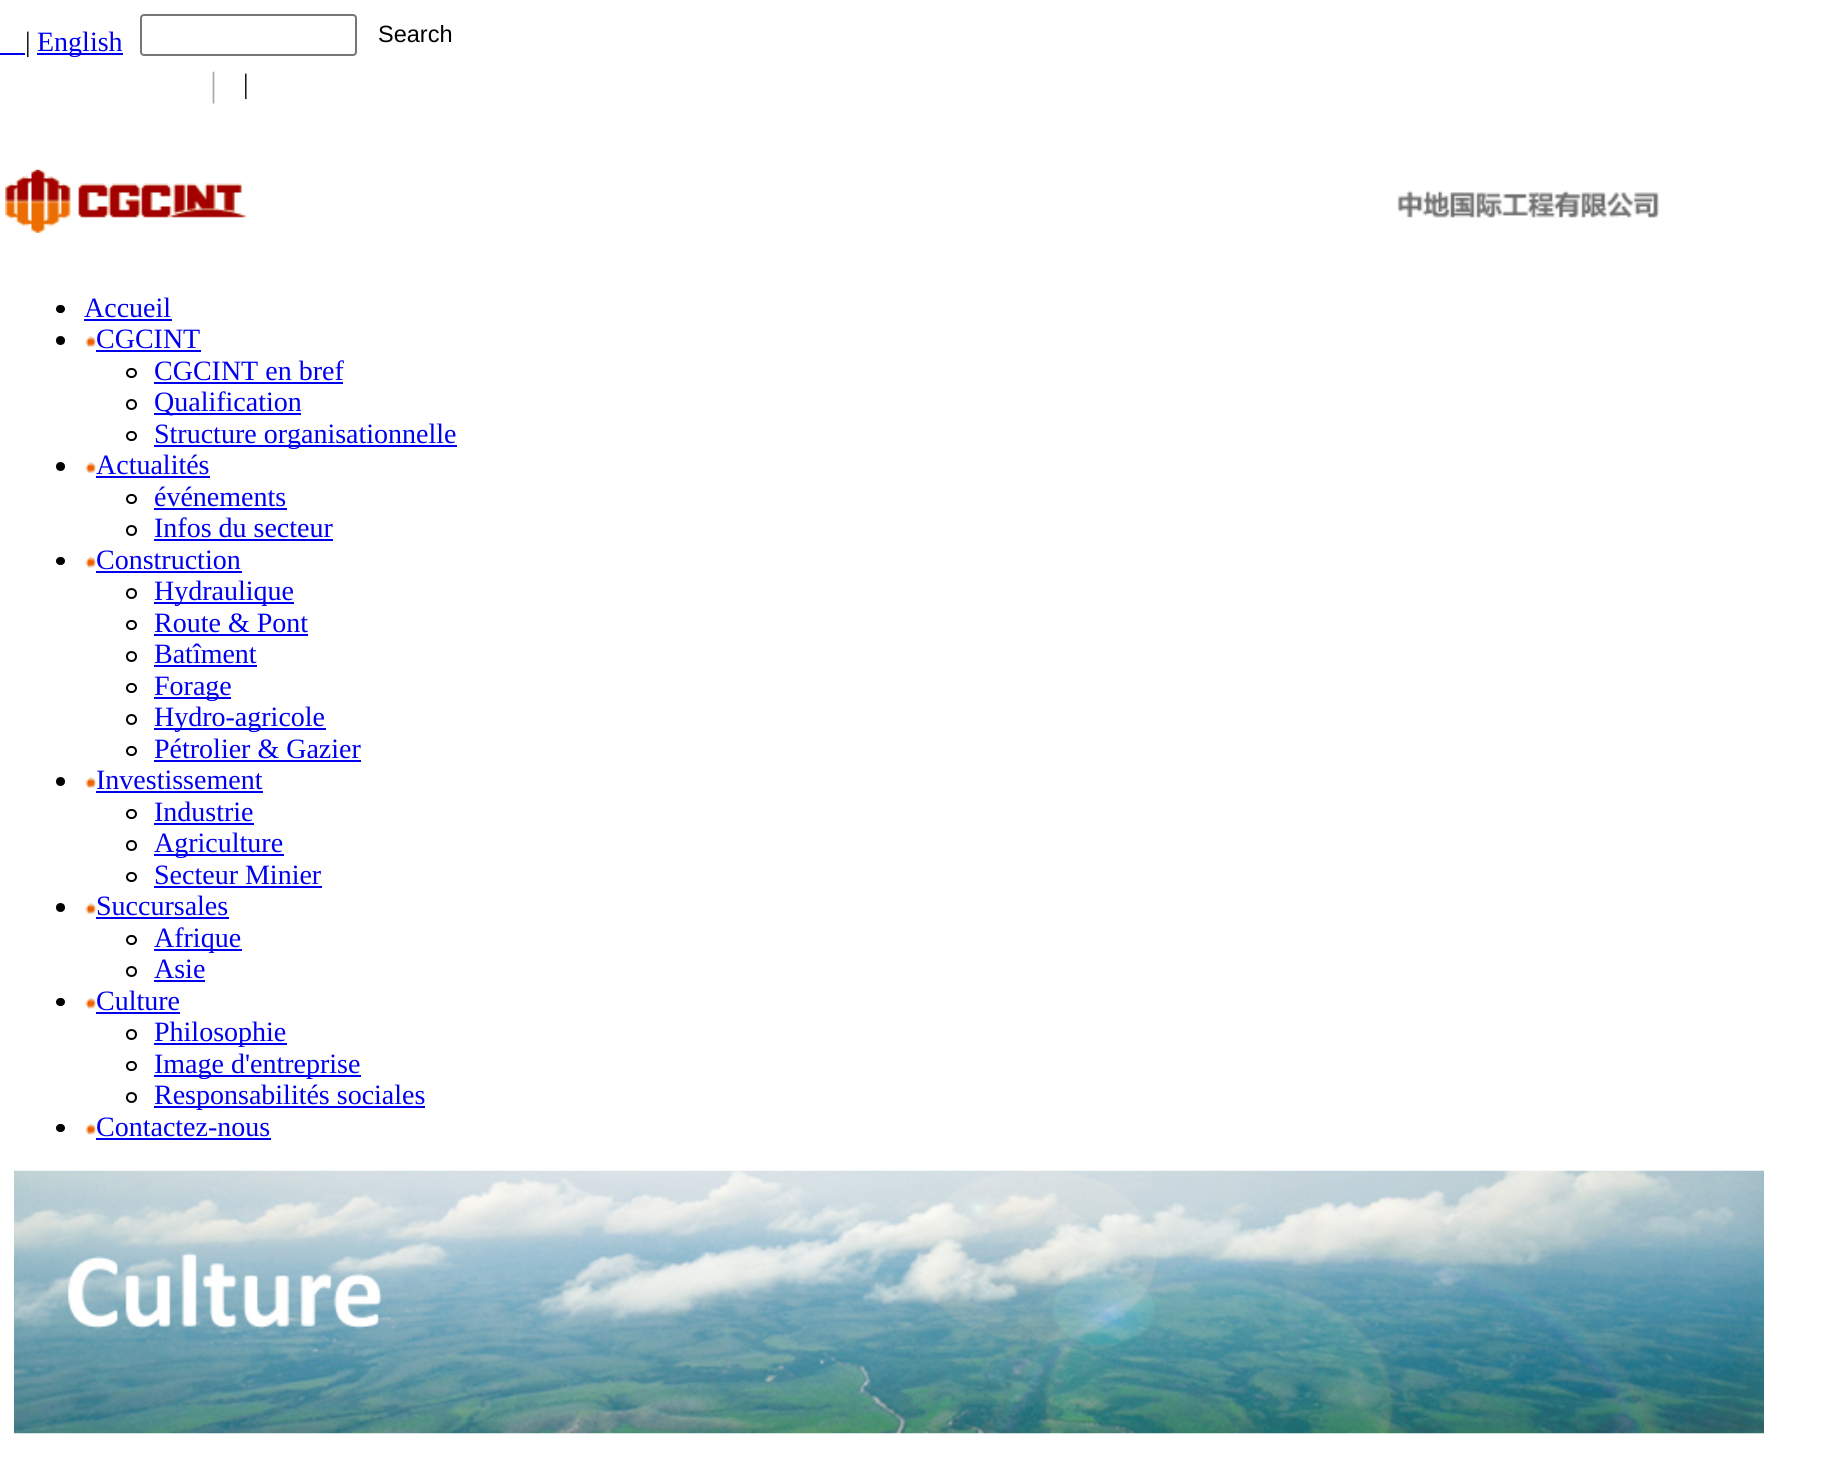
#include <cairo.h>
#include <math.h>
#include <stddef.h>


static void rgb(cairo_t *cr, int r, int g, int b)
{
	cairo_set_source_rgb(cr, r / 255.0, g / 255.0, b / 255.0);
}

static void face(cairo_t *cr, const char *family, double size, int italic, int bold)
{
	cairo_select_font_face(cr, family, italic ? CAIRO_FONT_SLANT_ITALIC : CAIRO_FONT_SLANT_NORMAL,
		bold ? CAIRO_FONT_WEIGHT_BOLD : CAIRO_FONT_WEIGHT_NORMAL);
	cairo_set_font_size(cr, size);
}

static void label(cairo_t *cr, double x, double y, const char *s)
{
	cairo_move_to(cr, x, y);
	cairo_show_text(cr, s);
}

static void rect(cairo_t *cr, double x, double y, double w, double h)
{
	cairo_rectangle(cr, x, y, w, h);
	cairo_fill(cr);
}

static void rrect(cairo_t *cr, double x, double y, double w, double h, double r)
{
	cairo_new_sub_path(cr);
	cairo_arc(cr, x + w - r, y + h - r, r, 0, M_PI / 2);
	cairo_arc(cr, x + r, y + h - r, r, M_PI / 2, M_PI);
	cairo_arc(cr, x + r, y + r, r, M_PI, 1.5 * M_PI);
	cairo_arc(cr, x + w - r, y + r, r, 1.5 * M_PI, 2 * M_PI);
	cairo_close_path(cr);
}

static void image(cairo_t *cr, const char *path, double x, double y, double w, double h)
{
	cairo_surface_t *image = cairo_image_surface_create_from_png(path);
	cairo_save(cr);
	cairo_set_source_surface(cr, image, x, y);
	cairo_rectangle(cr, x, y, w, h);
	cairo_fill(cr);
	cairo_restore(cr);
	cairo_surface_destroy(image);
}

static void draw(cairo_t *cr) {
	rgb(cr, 255, 255, 255);
	cairo_paint(cr);
	rgb(cr, 0, 0, 238);
	rect(cr, 0, 53, 25, 2);
	face(cr, "Liberation Serif", 28, 0, 0);
	rgb(cr, 0, 0, 0);
	label(cr, 25, 51, "|");
	rgb(cr, 0, 0, 238);
	rect(cr, 37, 53, 86, 2);
	label(cr, 37, 51, "English");
	rrect(cr, 141, 15, 215, 40, 3);
	rgb(cr, 118, 118, 118);
	cairo_stroke(cr);
	face(cr, "Liberation Sans", 23.5, 0, 0);
	rgb(cr, 0, 0, 0);
	label(cr, 378, 42, "Search");
	face(cr, "Liberation Serif", 35, 0, 0);
	rgb(cr, 170, 170, 170);
	label(cr, 210, 96, "|");
	face(cr, "Liberation Serif", 28, 0, 0);
	rgb(cr, 0, 0, 0);
	label(cr, 243, 93, "|");
	image(cr, "image0.png", 5, 169, 242, 64);
	image(cr, "image1.png", 1397, 190, 262, 28);
	rrect(cr, 56, 305, 9, 8, 4);
	cairo_fill(cr);
	rgb(cr, 0, 0, 238);
	label(cr, 84, 317, "Accueil");
	rect(cr, 84, 319, 88, 2);
	rgb(cr, 0, 0, 0);
	cairo_new_path(cr);
	cairo_arc(cr, 60.5, 340.5, 4.5, 0, 2 * M_PI);
	cairo_fill(cr);
	image(cr, "image2.png", 85, 336, 12, 11);
	rgb(cr, 0, 0, 238);
	label(cr, 96, 348, "CGCINT");
	rect(cr, 96, 350, 105, 2);
	rrect(cr, 127, 369, 9, 8, 4);
	rgb(cr, 0, 0, 0);
	cairo_stroke(cr);
	rgb(cr, 0, 0, 238);
	label(cr, 154, 380, "CGCINT en bref");
	rect(cr, 154, 382, 189, 2);
	cairo_new_path(cr);
	cairo_arc(cr, 131.5, 404.5, 4.5, 0, 2 * M_PI);
	rgb(cr, 0, 0, 0);
	cairo_stroke(cr);
	rgb(cr, 0, 0, 238);
	rect(cr, 154, 413, 147, 2);
	label(cr, 154, 411, "Qualification");
	rrect(cr, 127, 432, 9, 8, 4);
	rgb(cr, 0, 0, 0);
	cairo_stroke(cr);
	rgb(cr, 0, 0, 238);
	rect(cr, 154, 445, 303, 2);
	label(cr, 154, 443, "Structure organisationnelle");
	rgb(cr, 0, 0, 0);
	cairo_new_path(cr);
	cairo_arc(cr, 60.5, 466.5, 4.5, 0, 2 * M_PI);
	cairo_fill(cr);
	image(cr, "image2.png", 85, 462, 12, 11);
	rgb(cr, 0, 0, 238);
	label(cr, 96, 474, "Actualités");
	rect(cr, 96, 476, 114, 2);
	rrect(cr, 127, 495, 9, 8, 4);
	rgb(cr, 0, 0, 0);
	cairo_stroke(cr);
	rgb(cr, 0, 0, 238);
	label(cr, 154, 506, "événements");
	rect(cr, 154, 508, 133, 2);
	cairo_new_path(cr);
	cairo_arc(cr, 131.5, 530.5, 4.5, 0, 2 * M_PI);
	rgb(cr, 0, 0, 0);
	cairo_stroke(cr);
	rgb(cr, 0, 0, 238);
	label(cr, 154, 537, "Infos du secteur");
	rect(cr, 154, 539, 179, 2);
	rgb(cr, 0, 0, 0);
	rrect(cr, 56, 557, 9, 8, 4);
	cairo_fill(cr);
	image(cr, "image3.png", 85, 556, 12, 12);
	rgb(cr, 0, 0, 238);
	label(cr, 96, 569, "Construction");
	rect(cr, 96, 571, 146, 2);
	cairo_new_path(cr);
	cairo_arc(cr, 131.5, 593.5, 4.5, 0, 2 * M_PI);
	rgb(cr, 0, 0, 0);
	cairo_stroke(cr);
	rgb(cr, 0, 0, 238);
	rect(cr, 154, 602, 140, 2);
	label(cr, 154, 600, "Hydraulique");
	rrect(cr, 127, 621, 9, 8, 4);
	rgb(cr, 0, 0, 0);
	cairo_stroke(cr);
	rgb(cr, 0, 0, 238);
	label(cr, 154, 632, "Route & Pont");
	rect(cr, 154, 634, 154, 2);
	cairo_new_path(cr);
	cairo_arc(cr, 131.5, 656.5, 4.5, 0, 2 * M_PI);
	rgb(cr, 0, 0, 0);
	cairo_stroke(cr);
	rgb(cr, 0, 0, 238);
	label(cr, 154, 663, "Batîment");
	rect(cr, 154, 665, 103, 2);
	rrect(cr, 127, 684, 9, 8, 4);
	rgb(cr, 0, 0, 0);
	cairo_stroke(cr);
	rgb(cr, 0, 0, 238);
	rect(cr, 154, 697, 77, 2);
	label(cr, 154, 695, "Forage");
	cairo_new_path(cr);
	cairo_arc(cr, 131.5, 719.5, 4.5, 0, 2 * M_PI);
	rgb(cr, 0, 0, 0);
	cairo_stroke(cr);
	rgb(cr, 0, 0, 238);
	rect(cr, 154, 728, 172, 2);
	label(cr, 154, 726, "Hydro-agricole");
	rrect(cr, 127, 747, 9, 8, 4);
	rgb(cr, 0, 0, 0);
	cairo_stroke(cr);
	rgb(cr, 0, 0, 238);
	label(cr, 154, 758, "Pétrolier & Gazier");
	rect(cr, 154, 760, 207, 2);
	rgb(cr, 0, 0, 0);
	cairo_new_path(cr);
	cairo_arc(cr, 60.5, 781.5, 4.5, 0, 2 * M_PI);
	cairo_fill(cr);
	image(cr, "image2.png", 85, 777, 12, 11);
	rgb(cr, 0, 0, 238);
	label(cr, 96, 789, "Investissement");
	rect(cr, 96, 791, 167, 2);
	rrect(cr, 127, 810, 9, 8, 4);
	rgb(cr, 0, 0, 0);
	cairo_stroke(cr);
	rgb(cr, 0, 0, 238);
	label(cr, 154, 821, "Industrie");
	rect(cr, 154, 823, 100, 2);
	cairo_new_path(cr);
	cairo_arc(cr, 131.5, 845.5, 4.5, 0, 2 * M_PI);
	rgb(cr, 0, 0, 0);
	cairo_stroke(cr);
	rgb(cr, 0, 0, 238);
	rect(cr, 154, 854, 130, 2);
	label(cr, 154, 852, "Agriculture");
	rrect(cr, 127, 873, 9, 8, 4);
	rgb(cr, 0, 0, 0);
	cairo_stroke(cr);
	rgb(cr, 0, 0, 238);
	label(cr, 154, 884, "Secteur Minier");
	rect(cr, 154, 886, 168, 2);
	rgb(cr, 0, 0, 0);
	cairo_new_path(cr);
	cairo_arc(cr, 60.5, 907.5, 4.5, 0, 2 * M_PI);
	cairo_fill(cr);
	image(cr, "image2.png", 85, 903, 12, 11);
	rgb(cr, 0, 0, 238);
	label(cr, 96, 915, "Succursales");
	rect(cr, 96, 917, 133, 2);
	rrect(cr, 127, 936, 9, 8, 4);
	rgb(cr, 0, 0, 0);
	cairo_stroke(cr);
	rgb(cr, 0, 0, 238);
	rect(cr, 154, 949, 88, 2);
	label(cr, 154, 947, "Afrique");
	cairo_new_path(cr);
	cairo_arc(cr, 131.5, 971.5, 4.5, 0, 2 * M_PI);
	rgb(cr, 0, 0, 0);
	cairo_stroke(cr);
	rgb(cr, 0, 0, 238);
	label(cr, 154, 978, "Asie");
	rect(cr, 154, 980, 51, 2);
	rgb(cr, 0, 0, 0);
	rrect(cr, 56, 998, 9, 8, 4);
	cairo_fill(cr);
	image(cr, "image3.png", 85, 997, 12, 12);
	rgb(cr, 0, 0, 238);
	label(cr, 96, 1010, "Culture");
	rect(cr, 96, 1012, 84, 2);
	cairo_new_path(cr);
	cairo_arc(cr, 131.5, 1034.5, 4.5, 0, 2 * M_PI);
	rgb(cr, 0, 0, 0);
	cairo_stroke(cr);
	rgb(cr, 0, 0, 238);
	rect(cr, 154, 1043, 133, 2);
	label(cr, 154, 1041, "Philosophie");
	rrect(cr, 127, 1062, 9, 8, 4);
	rgb(cr, 0, 0, 0);
	cairo_stroke(cr);
	rgb(cr, 0, 0, 238);
	rect(cr, 154, 1075, 207, 2);
	label(cr, 154, 1073, "Image d'entreprise");
	cairo_new_path(cr);
	cairo_arc(cr, 131.5, 1097.5, 4.5, 0, 2 * M_PI);
	rgb(cr, 0, 0, 0);
	cairo_stroke(cr);
	rgb(cr, 0, 0, 238);
	rect(cr, 154, 1106, 271, 2);
	label(cr, 154, 1104, "Responsabilités sociales");
	rgb(cr, 0, 0, 0);
	rrect(cr, 56, 1124, 9, 8, 4);
	cairo_fill(cr);
	image(cr, "image3.png", 85, 1123, 12, 12);
	rgb(cr, 0, 0, 238);
	label(cr, 96, 1136, "Contactez-nous");
	rect(cr, 96, 1138, 175, 2);
	image(cr, "image4.png", 14, 1170, 1750, 264);
}

int main(void) {
	cairo_surface_t *surface = cairo_image_surface_create(CAIRO_FORMAT_RGB24, 1837, 1484);
	cairo_t *cr = cairo_create(surface);
	cairo_font_options_t *options = cairo_font_options_create();
	cairo_font_options_set_hint_metrics(options, CAIRO_HINT_METRICS_OFF);
	cairo_font_options_set_hint_style(options, CAIRO_HINT_STYLE_NONE);
	cairo_set_font_options(cr, options);
	cairo_set_miter_limit(cr, 4);
	draw(cr);
	cairo_surface_write_to_png(surface, "render.png");
	cairo_font_options_destroy(options);
	cairo_destroy(cr);
	cairo_surface_destroy(surface);
	return 0;
}
